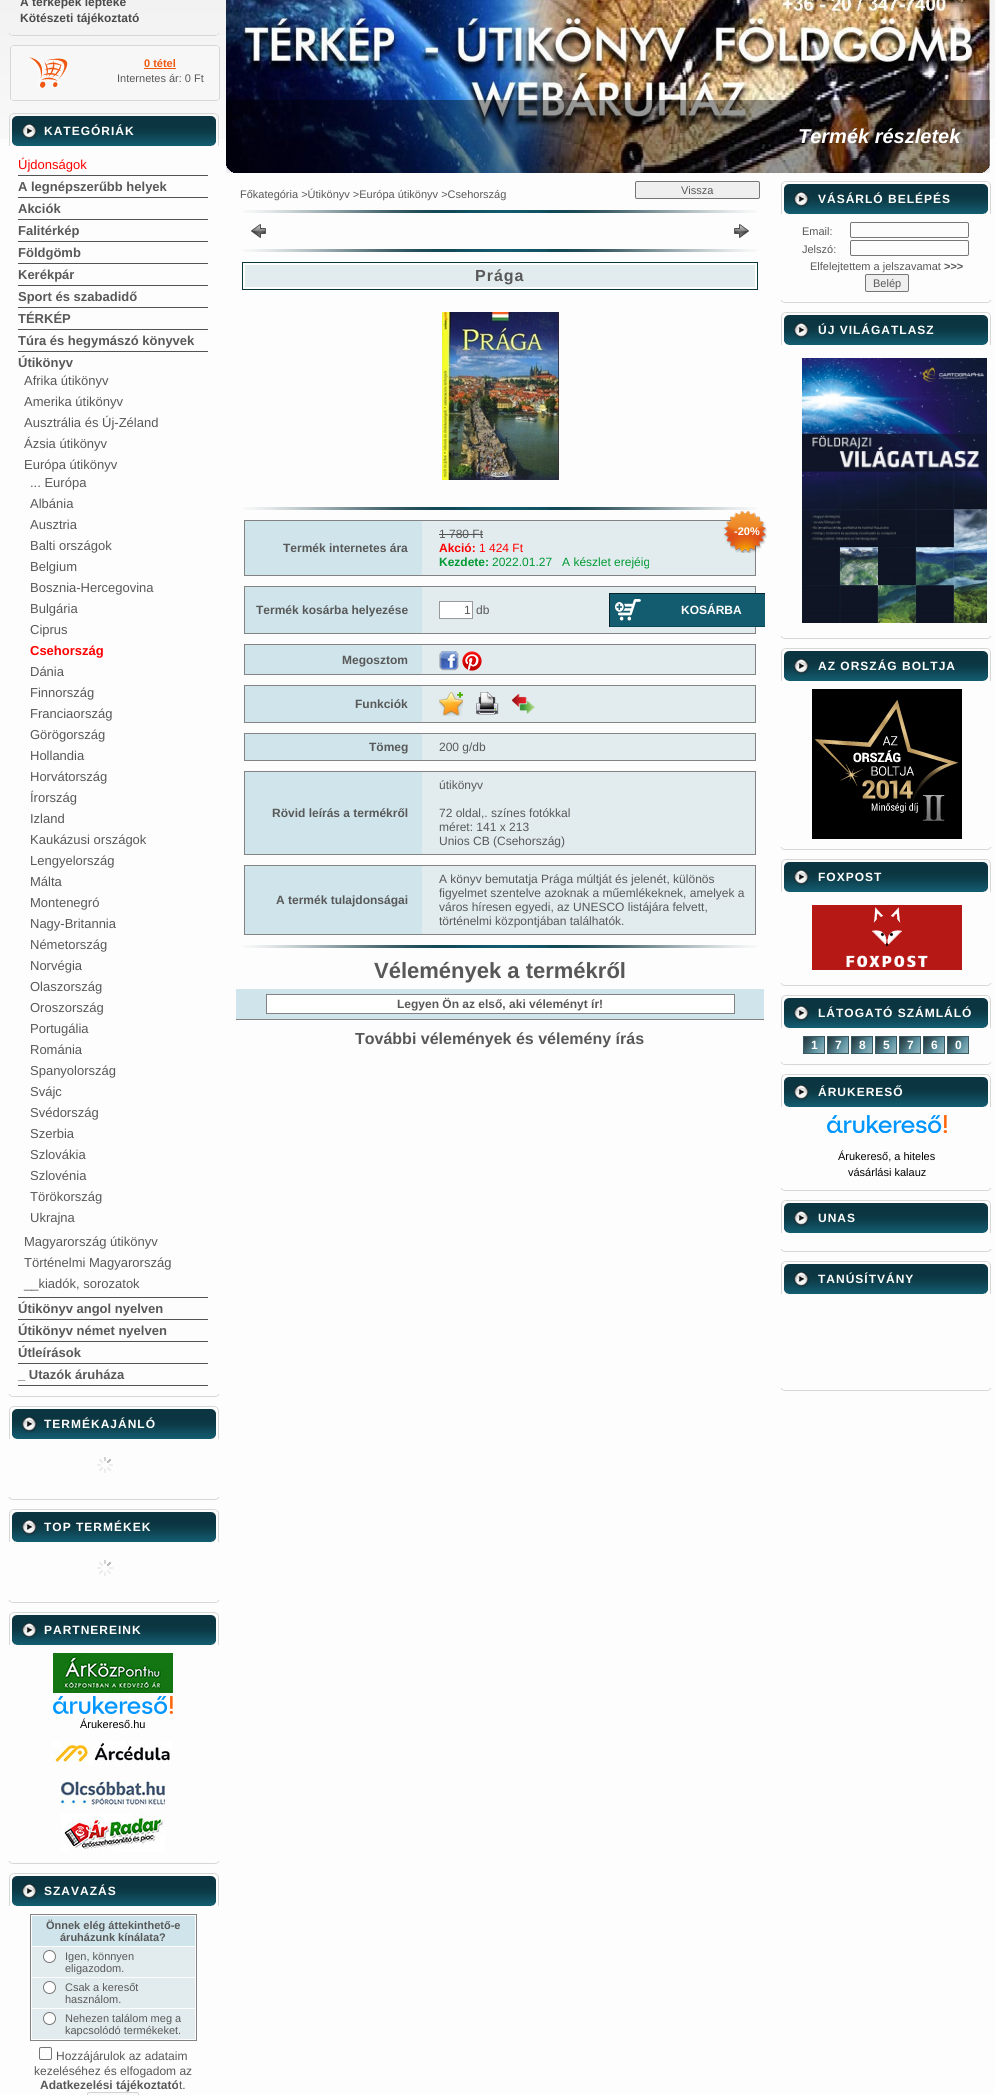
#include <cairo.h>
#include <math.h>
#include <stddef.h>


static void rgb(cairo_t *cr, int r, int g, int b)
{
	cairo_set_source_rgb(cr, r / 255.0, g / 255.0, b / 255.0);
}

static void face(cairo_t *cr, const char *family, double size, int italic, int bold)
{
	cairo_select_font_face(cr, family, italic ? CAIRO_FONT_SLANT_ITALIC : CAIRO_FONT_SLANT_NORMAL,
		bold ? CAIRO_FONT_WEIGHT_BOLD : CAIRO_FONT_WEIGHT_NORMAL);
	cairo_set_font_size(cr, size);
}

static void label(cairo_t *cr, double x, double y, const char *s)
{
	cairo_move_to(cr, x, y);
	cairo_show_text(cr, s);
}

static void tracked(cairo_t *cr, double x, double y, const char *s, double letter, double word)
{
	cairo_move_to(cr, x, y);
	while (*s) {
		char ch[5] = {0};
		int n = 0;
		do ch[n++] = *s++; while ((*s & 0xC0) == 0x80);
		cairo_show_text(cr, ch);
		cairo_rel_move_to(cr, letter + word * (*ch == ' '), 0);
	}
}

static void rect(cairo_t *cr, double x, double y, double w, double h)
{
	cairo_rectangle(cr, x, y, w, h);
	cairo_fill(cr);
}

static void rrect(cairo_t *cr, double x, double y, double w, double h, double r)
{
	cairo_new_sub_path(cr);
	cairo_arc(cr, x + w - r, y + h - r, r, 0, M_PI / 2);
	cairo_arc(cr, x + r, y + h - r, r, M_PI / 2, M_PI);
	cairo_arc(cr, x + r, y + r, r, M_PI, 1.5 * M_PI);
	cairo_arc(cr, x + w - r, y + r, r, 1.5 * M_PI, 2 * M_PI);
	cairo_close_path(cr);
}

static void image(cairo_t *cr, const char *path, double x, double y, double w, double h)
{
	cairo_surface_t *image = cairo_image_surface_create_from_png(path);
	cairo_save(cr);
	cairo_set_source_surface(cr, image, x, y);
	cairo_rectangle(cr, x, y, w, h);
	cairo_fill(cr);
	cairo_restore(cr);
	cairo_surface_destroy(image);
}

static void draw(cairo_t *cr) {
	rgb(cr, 253, 253, 253);
	cairo_paint(cr);
	image(cr, "image0.png", 0, 0, 995, 139);
	face(cr, "Liberation Sans", 12, 0, 1);
	rgb(cr, 75, 75, 75);
	label(cr, 20, 6, "A térképek léptéke");
	label(cr, 20, 22, "Kötészeti tájékoztató");
	image(cr, "image1.png", 9, 33, 210, 3);
	image(cr, "image2.png", 10, 45, 210, 56);
	image(cr, "image3.png", 29, 57, 39, 31);
	face(cr, "Liberation Sans", 11, 0, 1);
	rgb(cr, 239, 88, 17);
	label(cr, 144, 67, "0 tétel");
	rect(cr, 144, 68, 32, 1);
	face(cr, "Liberation Sans", 11, 0, 0);
	rgb(cr, 88, 88, 88);
	label(cr, 117, 82, "Internetes ár: 0 Ft");
	image(cr, "image4.png", 9, 113, 210, 33);
	face(cr, "Liberation Sans", 12, 0, 1);
	rgb(cr, 255, 255, 255);
	tracked(cr, 44, 135, "KATEGÓRIÁK", 1, 0);
	rgb(cr, 83, 83, 83);
	rect(cr, 18, 175, 190, 1);
	face(cr, "Liberation Sans", 13, 0, 0);
	rgb(cr, 255, 0, 0);
	label(cr, 18, 169, "Újdonságok");
	rgb(cr, 83, 83, 83);
	rect(cr, 18, 197, 190, 1);
	face(cr, "Liberation Sans", 13, 0, 1);
	rgb(cr, 88, 88, 88);
	label(cr, 18, 191, "A legnépszerűbb helyek");
	rgb(cr, 83, 83, 83);
	rect(cr, 18, 219, 190, 1);
	rgb(cr, 88, 88, 88);
	label(cr, 18, 213, "Akciók");
	rgb(cr, 83, 83, 83);
	rect(cr, 18, 241, 190, 1);
	rgb(cr, 88, 88, 88);
	label(cr, 18, 235, "Falitérkép");
	rgb(cr, 83, 83, 83);
	rect(cr, 18, 263, 190, 1);
	rgb(cr, 88, 88, 88);
	label(cr, 18, 257, "Földgömb");
	rgb(cr, 83, 83, 83);
	rect(cr, 18, 285, 190, 1);
	rgb(cr, 88, 88, 88);
	label(cr, 18, 279, "Kerékpár");
	rgb(cr, 83, 83, 83);
	rect(cr, 18, 307, 190, 1);
	rgb(cr, 88, 88, 88);
	label(cr, 18, 301, "Sport és szabadidő");
	rgb(cr, 83, 83, 83);
	rect(cr, 18, 329, 190, 1);
	rgb(cr, 88, 88, 88);
	label(cr, 18, 323, "TÉRKÉP");
	rgb(cr, 83, 83, 83);
	rect(cr, 18, 351, 190, 1);
	rgb(cr, 88, 88, 88);
	label(cr, 18, 345, "Túra és hegymászó könyvek");
	rgb(cr, 83, 83, 83);
	rect(cr, 18, 1297, 190, 1);
	rgb(cr, 88, 88, 88);
	label(cr, 18, 367, "Útikönyv");
	face(cr, "Liberation Sans", 13, 0, 0);
	label(cr, 24, 385, "Afrika útikönyv");
	label(cr, 24, 406, "Amerika útikönyv");
	label(cr, 24, 427, "Ausztrália és Új-Zéland");
	label(cr, 24, 448, "Ázsia útikönyv");
	label(cr, 24, 469, "Európa útikönyv");
	label(cr, 30, 487, "... Európa");
	label(cr, 30, 508, "Albánia");
	label(cr, 30, 529, "Ausztria");
	label(cr, 30, 550, "Balti országok");
	label(cr, 30, 571, "Belgium");
	label(cr, 30, 592, "Bosznia-Hercegovina");
	label(cr, 30, 613, "Bulgária");
	label(cr, 30, 634, "Ciprus");
	face(cr, "Liberation Sans", 13, 0, 1);
	rgb(cr, 255, 0, 0);
	label(cr, 30, 655, "Csehország");
	face(cr, "Liberation Sans", 13, 0, 0);
	rgb(cr, 88, 88, 88);
	label(cr, 30, 676, "Dánia");
	label(cr, 30, 697, "Finnország");
	label(cr, 30, 718, "Franciaország");
	label(cr, 30, 739, "Görögország");
	label(cr, 30, 760, "Hollandia");
	label(cr, 30, 781, "Horvátország");
	label(cr, 30, 802, "Írország");
	label(cr, 30, 823, "Izland");
	label(cr, 30, 844, "Kaukázusi országok");
	label(cr, 30, 865, "Lengyelország");
	label(cr, 30, 886, "Málta");
	label(cr, 30, 907, "Montenegró");
	label(cr, 30, 928, "Nagy-Britannia");
	label(cr, 30, 949, "Németország");
	label(cr, 30, 970, "Norvégia");
	label(cr, 30, 991, "Olaszország");
	label(cr, 30, 1012, "Oroszország");
	label(cr, 30, 1033, "Portugália");
	label(cr, 30, 1054, "Románia");
	label(cr, 30, 1075, "Spanyolország");
	label(cr, 30, 1096, "Svájc");
	label(cr, 30, 1117, "Svédország");
	label(cr, 30, 1138, "Szerbia");
	label(cr, 30, 1159, "Szlovákia");
	label(cr, 30, 1180, "Szlovénia");
	label(cr, 30, 1201, "Törökország");
	label(cr, 30, 1222, "Ukrajna");
	label(cr, 24, 1246, "Magyarország útikönyv");
	label(cr, 24, 1267, "Történelmi Magyarország");
	label(cr, 24, 1288, "__kiadók, sorozatok");
	rgb(cr, 83, 83, 83);
	rect(cr, 18, 1319, 190, 1);
	face(cr, "Liberation Sans", 13, 0, 1);
	rgb(cr, 88, 88, 88);
	label(cr, 18, 1313, "Útikönyv angol nyelven");
	rgb(cr, 83, 83, 83);
	rect(cr, 18, 1341, 190, 1);
	rgb(cr, 88, 88, 88);
	label(cr, 18, 1335, "Útikönyv német nyelven");
	rgb(cr, 83, 83, 83);
	rect(cr, 18, 1363, 190, 1);
	rgb(cr, 88, 88, 88);
	label(cr, 18, 1357, "Útleírások");
	rgb(cr, 83, 83, 83);
	rect(cr, 18, 1385, 190, 1);
	rgb(cr, 88, 88, 88);
	label(cr, 18, 1379, "_ Utazók áruháza");
	image(cr, "image5.png", 8, 1394, 212, 3);
	image(cr, "image6.png", 9, 1406, 210, 33);
	face(cr, "Liberation Sans", 12, 0, 1);
	rgb(cr, 255, 255, 255);
	tracked(cr, 44, 1428, "TERMÉKAJÁNLÓ", 1, 0);
	image(cr, "image7.png", 97, 1457, 16, 16);
	image(cr, "image5.png", 8, 1497, 212, 3);
	image(cr, "image6.png", 9, 1509, 210, 33);
	tracked(cr, 44, 1531, "TOP TERMÉKEK", 1, 0);
	image(cr, "image7.png", 97, 1560, 16, 16);
	image(cr, "image5.png", 8, 1600, 212, 3);
	image(cr, "image6.png", 9, 1612, 210, 33);
	tracked(cr, 44, 1634, "PARTNEREINK", 1, 0);
	image(cr, "image8.png", 53, 1653, 120, 40);
	image(cr, "image9.png", 53, 1696, 120, 18);
	face(cr, "Liberation Sans", 11, 0, 0);
	rgb(cr, 0, 0, 0);
	label(cr, 80, 1728, "Árukereső.hu");
	image(cr, "image10.png", 53, 1741, 119, 24);
	image(cr, "image11.png", 61, 1781, 105, 24);
	image(cr, "image12.png", 61, 1813, 104, 39);
	image(cr, "image5.png", 8, 1861, 212, 3);
	image(cr, "image6.png", 9, 1873, 210, 33);
	face(cr, "Liberation Sans", 12, 0, 1);
	rgb(cr, 255, 255, 255);
	tracked(cr, 44, 1895, "SZAVAZÁS", 1, 0);
	cairo_rectangle(cr, 30.5, 1914.5, 166, 126);
	rgb(cr, 131, 131, 131);
	cairo_set_line_width(cr, 1);
	cairo_stroke(cr);
	rgb(cr, 207, 229, 235);
	rect(cr, 32, 1916, 163, 30);
	face(cr, "Liberation Sans", 11, 0, 1);
	rgb(cr, 88, 88, 88);
	label(cr, 46, 1929, "Önnek elég áttekinthető-e");
	label(cr, 60, 1941, "áruházunk kínálata?");
	rgb(cr, 226, 236, 239);
	rect(cr, 32, 1947, 163, 30);
	rgb(cr, 255, 255, 255);
	cairo_new_path(cr);
	cairo_arc(cr, 49.5, 1956.5, 6, 0, 2 * M_PI);
	cairo_fill_preserve(cr);
	rgb(cr, 118, 118, 118);
	cairo_stroke(cr);
	face(cr, "Liberation Sans", 11, 0, 0);
	rgb(cr, 88, 88, 88);
	label(cr, 65, 1960, "Igen, könnyen");
	label(cr, 65, 1972, "eligazodom.");
	rgb(cr, 226, 236, 239);
	rect(cr, 32, 1978, 163, 30);
	rgb(cr, 255, 255, 255);
	cairo_new_path(cr);
	cairo_arc(cr, 49.5, 1987.5, 6, 0, 2 * M_PI);
	cairo_fill_preserve(cr);
	rgb(cr, 118, 118, 118);
	cairo_stroke(cr);
	rgb(cr, 88, 88, 88);
	label(cr, 65, 1991, "Csak a keresőt");
	label(cr, 65, 2003, "használom.");
	rgb(cr, 226, 236, 239);
	rect(cr, 32, 2009, 163, 30);
	rgb(cr, 255, 255, 255);
	cairo_new_path(cr);
	cairo_arc(cr, 49.5, 2018.5, 6, 0, 2 * M_PI);
	cairo_fill_preserve(cr);
	rgb(cr, 118, 118, 118);
	cairo_stroke(cr);
	rgb(cr, 88, 88, 88);
	label(cr, 65, 2022, "Nehezen találom meg a");
	label(cr, 65, 2034, "kapcsolódó termékeket.");
	rrect(cr, 39.5, 2047.5, 12, 12, 1.5);
	rgb(cr, 118, 118, 118);
	cairo_stroke(cr);
	face(cr, "Liberation Sans", 12, 0, 0);
	rgb(cr, 88, 88, 88);
	label(cr, 56, 2060, "Hozzájárulok az adataim");
	label(cr, 34, 2075, "kezeléséhez és elfogadom az");
	face(cr, "Liberation Sans", 12, 0, 1);
	label(cr, 40, 2089, "Adatkezelési tájékoztató");
	face(cr, "Liberation Sans", 12, 0, 0);
	label(cr, 179, 2089, "t.");
	rgb(cr, 249, 249, 249);
	rrect(cr, 87.5, 2092.5, 51, 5, 1.5);
	cairo_fill_preserve(cr);
	rgb(cr, 210, 210, 210);
	cairo_stroke(cr);
	image(cr, "image13.png", 226, 0, 764, 173);
	cairo_set_source_rgba(cr, 0, 0, 0, 0.4);
	rect(cr, 226, 100, 764, 73);
	face(cr, "Liberation Sans", 20, 1, 1);
	rgb(cr, 255, 255, 255);
	label(cr, 798, 143, "Termék részletek");
	image(cr, "image14.png", 226, 166, 7, 7);
	image(cr, "image15.png", 983, 166, 7, 7);
	face(cr, "Liberation Sans", 11, 0, 0);
	rgb(cr, 88, 88, 88);
	label(cr, 240, 198, "Főkategória >Útikönyv >Európa útikönyv >Csehország");
	rgb(cr, 239, 239, 239);
	rrect(cr, 635.5, 181.5, 124, 17, 1.5);
	cairo_fill_preserve(cr);
	rgb(cr, 118, 118, 118);
	cairo_stroke(cr);
	rgb(cr, 88, 88, 88);
	label(cr, 681, 194, "Vissza");
	image(cr, "image16.png", 243, 210, 514, 3);
	image(cr, "image17.png", 251, 224, 15, 14);
	image(cr, "image18.png", 734, 224, 15, 14);
	image(cr, "image16.png", 243, 249, 514, 3);
	cairo_rectangle(cr, 242.5, 262.5, 515, 27);
	rgb(cr, 11, 53, 64);
	cairo_stroke(cr);
	rgb(cr, 226, 236, 239);
	rect(cr, 245, 265, 510, 22);
	face(cr, "Liberation Sans", 16, 0, 1);
	rgb(cr, 88, 88, 88);
	tracked(cr, 475, 281, "Prága", 1, 0);
	image(cr, "image19.png", 442, 312, 117, 168);
	image(cr, "image16.png", 243, 507, 514, 3);
	cairo_rectangle(cr, 244.5, 520.5, 511, 55);
	rgb(cr, 131, 131, 131);
	cairo_stroke(cr);
	rgb(cr, 207, 229, 235);
	rect(cr, 245, 521, 177, 54);
	face(cr, "Liberation Sans", 12, 0, 1);
	rgb(cr, 88, 88, 88);
	label(cr, 283, 552, "Termék internetes ára");
	rgb(cr, 226, 236, 239);
	rect(cr, 422, 521, 333, 54);
	face(cr, "Liberation Sans", 12, 0, 0);
	rgb(cr, 88, 88, 88);
	label(cr, 439, 538, "1 780 Ft");
	rgb(cr, 83, 83, 83);
	rect(cr, 439, 534, 44, 1);
	face(cr, "Liberation Sans", 12, 0, 1);
	rgb(cr, 255, 0, 0);
	label(cr, 439, 552, "Akció:");
	face(cr, "Liberation Sans", 12, 0, 0);
	label(cr, 479, 552, "1 424 Ft");
	face(cr, "Liberation Sans", 12, 0, 1);
	rgb(cr, 0, 153, 51);
	label(cr, 439, 566, "Kezdete:");
	face(cr, "Liberation Sans", 12, 0, 0);
	label(cr, 492, 566, "2022.01.27   A készlet erejéig");
	image(cr, "image20.png", 723, 511, 44, 42);
	face(cr, "Liberation Sans", 11, 0, 1);
	rgb(cr, 255, 255, 255);
	label(cr, 734, 535, "-20%");
	cairo_rectangle(cr, 244.5, 586.5, 511, 47);
	rgb(cr, 131, 131, 131);
	cairo_stroke(cr);
	rgb(cr, 207, 229, 235);
	rect(cr, 245, 587, 177, 46);
	face(cr, "Liberation Sans", 12, 0, 1);
	rgb(cr, 88, 88, 88);
	label(cr, 256, 614, "Termék kosárba helyezése");
	rgb(cr, 226, 236, 239);
	rect(cr, 422, 587, 333, 46);
	rgb(cr, 255, 255, 255);
	cairo_rectangle(cr, 439.5, 601.5, 33, 17);
	cairo_fill_preserve(cr);
	rgb(cr, 153, 153, 153);
	cairo_stroke(cr);
	face(cr, "Liberation Sans", 12, 0, 0);
	rgb(cr, 88, 88, 88);
	label(cr, 464, 614, "1");
	label(cr, 476, 614, "db");
	rgb(cr, 19, 91, 110);
	rect(cr, 610, 594, 155, 32);
	image(cr, "image21.png", 615, 599, 26, 22);
	rgb(cr, 6, 36, 44);
	rect(cr, 609, 593, 156, 1);
	rgb(cr, 6, 73, 90);
	rect(cr, 609, 626, 156, 1);
	rgb(cr, 6, 36, 44);
	rect(cr, 609, 593, 1, 34);
	face(cr, "Liberation Sans", 12, 0, 1);
	rgb(cr, 255, 255, 255);
	label(cr, 681, 614, "KOSÁRBA");
	cairo_rectangle(cr, 244.5, 644.5, 511, 30);
	rgb(cr, 131, 131, 131);
	cairo_stroke(cr);
	rgb(cr, 207, 229, 235);
	rect(cr, 245, 645, 177, 29);
	rgb(cr, 88, 88, 88);
	label(cr, 342, 664, "Megosztom");
	rgb(cr, 226, 236, 239);
	rect(cr, 422, 645, 333, 29);
	image(cr, "image22.png", 439, 651, 20, 20);
	image(cr, "image23.png", 462, 651, 20, 20);
	cairo_rectangle(cr, 244.5, 685.5, 511, 37);
	rgb(cr, 131, 131, 131);
	cairo_stroke(cr);
	rgb(cr, 207, 229, 235);
	rect(cr, 245, 686, 177, 36);
	rgb(cr, 88, 88, 88);
	label(cr, 355, 708, "Funkciók");
	rgb(cr, 226, 236, 239);
	rect(cr, 422, 686, 333, 36);
	image(cr, "image24.png", 439, 692, 24, 24);
	image(cr, "image25.png", 476, 692, 23, 23);
	image(cr, "image26.png", 512, 694, 23, 20);
	cairo_rectangle(cr, 244.5, 733.5, 511, 27);
	rgb(cr, 131, 131, 131);
	cairo_stroke(cr);
	rgb(cr, 207, 229, 235);
	rect(cr, 245, 734, 177, 26);
	rgb(cr, 88, 88, 88);
	label(cr, 369, 751, "Tömeg");
	rgb(cr, 226, 236, 239);
	rect(cr, 422, 734, 333, 26);
	face(cr, "Liberation Sans", 12, 0, 0);
	rgb(cr, 88, 88, 88);
	label(cr, 439, 751, "200 g/db");
	cairo_rectangle(cr, 244.5, 771.5, 511, 83);
	rgb(cr, 131, 131, 131);
	cairo_stroke(cr);
	rgb(cr, 207, 229, 235);
	rect(cr, 245, 772, 177, 82);
	face(cr, "Liberation Sans", 12, 0, 1);
	rgb(cr, 88, 88, 88);
	label(cr, 272, 817, "Rövid leírás a termékről");
	rgb(cr, 226, 236, 239);
	rect(cr, 422, 772, 333, 82);
	face(cr, "Liberation Sans", 12, 0, 0);
	rgb(cr, 88, 88, 88);
	label(cr, 439, 789, "útikönyv");
	label(cr, 439, 817, "72 oldal,. színes fotókkal");
	label(cr, 439, 831, "méret: 141 x 213");
	label(cr, 439, 845, "Unios CB (Csehország)");
	cairo_rectangle(cr, 244.5, 865.5, 511, 69);
	rgb(cr, 131, 131, 131);
	cairo_stroke(cr);
	rgb(cr, 207, 229, 235);
	rect(cr, 245, 866, 177, 68);
	face(cr, "Liberation Sans", 12, 0, 1);
	rgb(cr, 88, 88, 88);
	label(cr, 276, 904, "A termék tulajdonságai");
	rgb(cr, 226, 236, 239);
	rect(cr, 422, 866, 333, 68);
	face(cr, "Liberation Sans", 12, 0, 0);
	rgb(cr, 88, 88, 88);
	label(cr, 439, 883, "A könyv bemutatja Prága múltját és jelenét, különös");
	label(cr, 439, 897, "figyelmet szentelve azoknak a műemlékeknek, amelyek a");
	label(cr, 439, 911, "város híresen egyedi, az UNESCO listájára felvett,");
	label(cr, 439, 925, "történelmi központjában találhatók.");
	image(cr, "image16.png", 243, 945, 514, 3);
	face(cr, "Liberation Sans", 22, 0, 1);
	label(cr, 374, 978, "Vélemények a termékről");
	rgb(cr, 207, 229, 235);
	rect(cr, 236, 989, 528, 30);
	rgb(cr, 131, 131, 131);
	rect(cr, 236, 1019, 528, 1);
	rgb(cr, 255, 255, 255);
	cairo_rectangle(cr, 266.5, 994.5, 468, 19);
	cairo_fill_preserve(cr);
	rgb(cr, 131, 131, 131);
	cairo_stroke(cr);
	face(cr, "Liberation Sans", 12, 0, 1);
	rgb(cr, 88, 88, 88);
	label(cr, 397, 1008, "Legyen Ön az első, aki véleményt ír!");
	face(cr, "Liberation Sans", 16, 0, 1);
	label(cr, 355, 1044, "További vélemények és vélemény írás");
	image(cr, "image27.png", 781, 181, 210, 33);
	face(cr, "Liberation Sans", 12, 0, 1);
	rgb(cr, 255, 255, 255);
	tracked(cr, 818, 203, "VÁSÁRLÓ BELÉPÉS", 1, 0);
	face(cr, "Liberation Sans", 11, 0, 0);
	rgb(cr, 88, 88, 88);
	label(cr, 802, 235, "Email:");
	rrect(cr, 850.5, 222.5, 118, 15, 1.5);
	rgb(cr, 118, 118, 118);
	cairo_stroke(cr);
	rgb(cr, 88, 88, 88);
	label(cr, 802, 253, "Jelszó:");
	rrect(cr, 850.5, 240.5, 118, 15, 1.5);
	rgb(cr, 118, 118, 118);
	cairo_stroke(cr);
	rgb(cr, 88, 88, 88);
	label(cr, 810, 270, "Elfelejtettem a jelszavamat");
	face(cr, "Liberation Sans", 11, 0, 1);
	label(cr, 944, 270, ">>>");
	rgb(cr, 239, 239, 239);
	rrect(cr, 865.5, 274.5, 43, 17, 1.5);
	cairo_fill_preserve(cr);
	rgb(cr, 118, 118, 118);
	cairo_stroke(cr);
	face(cr, "Liberation Sans", 11, 0, 0);
	rgb(cr, 88, 88, 88);
	label(cr, 873, 287, "Belép");
	image(cr, "image28.png", 780, 300, 212, 3);
	image(cr, "image27.png", 781, 312, 210, 33);
	face(cr, "Liberation Sans", 12, 0, 1);
	rgb(cr, 255, 255, 255);
	tracked(cr, 818, 334, "ÚJ VILÁGATLASZ", 1, 0);
	image(cr, "image29.png", 802, 358, 185, 265);
	image(cr, "image28.png", 780, 636, 212, 3);
	image(cr, "image27.png", 781, 648, 210, 33);
	tracked(cr, 818, 670, "AZ ORSZÁG BOLTJA", 1, 0);
	image(cr, "image30.png", 812, 689, 150, 150);
	image(cr, "image28.png", 780, 847, 212, 3);
	image(cr, "image27.png", 781, 859, 210, 33);
	tracked(cr, 818, 881, "FOXPOST", 1, 0);
	image(cr, "image31.png", 812, 905, 150, 65);
	image(cr, "image28.png", 780, 983, 212, 3);
	image(cr, "image27.png", 781, 995, 210, 33);
	tracked(cr, 818, 1017, "LÁTOGATÓ SZÁMLÁLÓ", 1, 0);
	image(cr, "image32.png", 803, 1036, 22, 18);
	label(cr, 811, 1049, "1");
	image(cr, "image32.png", 827, 1036, 22, 18);
	label(cr, 835, 1049, "7");
	image(cr, "image32.png", 851, 1036, 22, 18);
	label(cr, 859, 1049, "8");
	image(cr, "image32.png", 875, 1036, 22, 18);
	label(cr, 883, 1049, "5");
	image(cr, "image32.png", 899, 1036, 22, 18);
	label(cr, 907, 1049, "7");
	image(cr, "image32.png", 923, 1036, 22, 18);
	label(cr, 931, 1049, "6");
	image(cr, "image32.png", 947, 1036, 22, 18);
	label(cr, 955, 1049, "0");
	image(cr, "image28.png", 780, 1062, 212, 3);
	image(cr, "image27.png", 781, 1074, 210, 33);
	tracked(cr, 818, 1096, "ÁRUKERESŐ", 1, 0);
	image(cr, "image33.png", 827, 1115, 120, 18);
	face(cr, "Liberation Sans", 11, 0, 0);
	rgb(cr, 0, 0, 0);
	label(cr, 838, 1160, "Árukereső, a hiteles");
	label(cr, 848, 1176, "vásárlási kalauz");
	image(cr, "image28.png", 780, 1188, 212, 3);
	image(cr, "image27.png", 781, 1200, 210, 33);
	face(cr, "Liberation Sans", 12, 0, 1);
	rgb(cr, 255, 255, 255);
	tracked(cr, 818, 1222, "UNAS", 1, 0);
	image(cr, "image28.png", 780, 1249, 212, 3);
	image(cr, "image27.png", 781, 1261, 210, 33);
	tracked(cr, 818, 1283, "TANÚSÍTVÁNY", 1, 0);
	image(cr, "image28.png", 780, 1388, 212, 3);
}

int main(void) {
	cairo_surface_t *surface = cairo_image_surface_create(CAIRO_FORMAT_RGB24, 995, 2095);
	cairo_t *cr = cairo_create(surface);
	cairo_font_options_t *options = cairo_font_options_create();
	cairo_font_options_set_hint_metrics(options, CAIRO_HINT_METRICS_OFF);
	cairo_font_options_set_hint_style(options, CAIRO_HINT_STYLE_NONE);
	cairo_set_font_options(cr, options);
	cairo_set_miter_limit(cr, 4);
	draw(cr);
	cairo_surface_write_to_png(surface, "render.png");
	cairo_font_options_destroy(options);
	cairo_destroy(cr);
	cairo_surface_destroy(surface);
	return 0;
}
